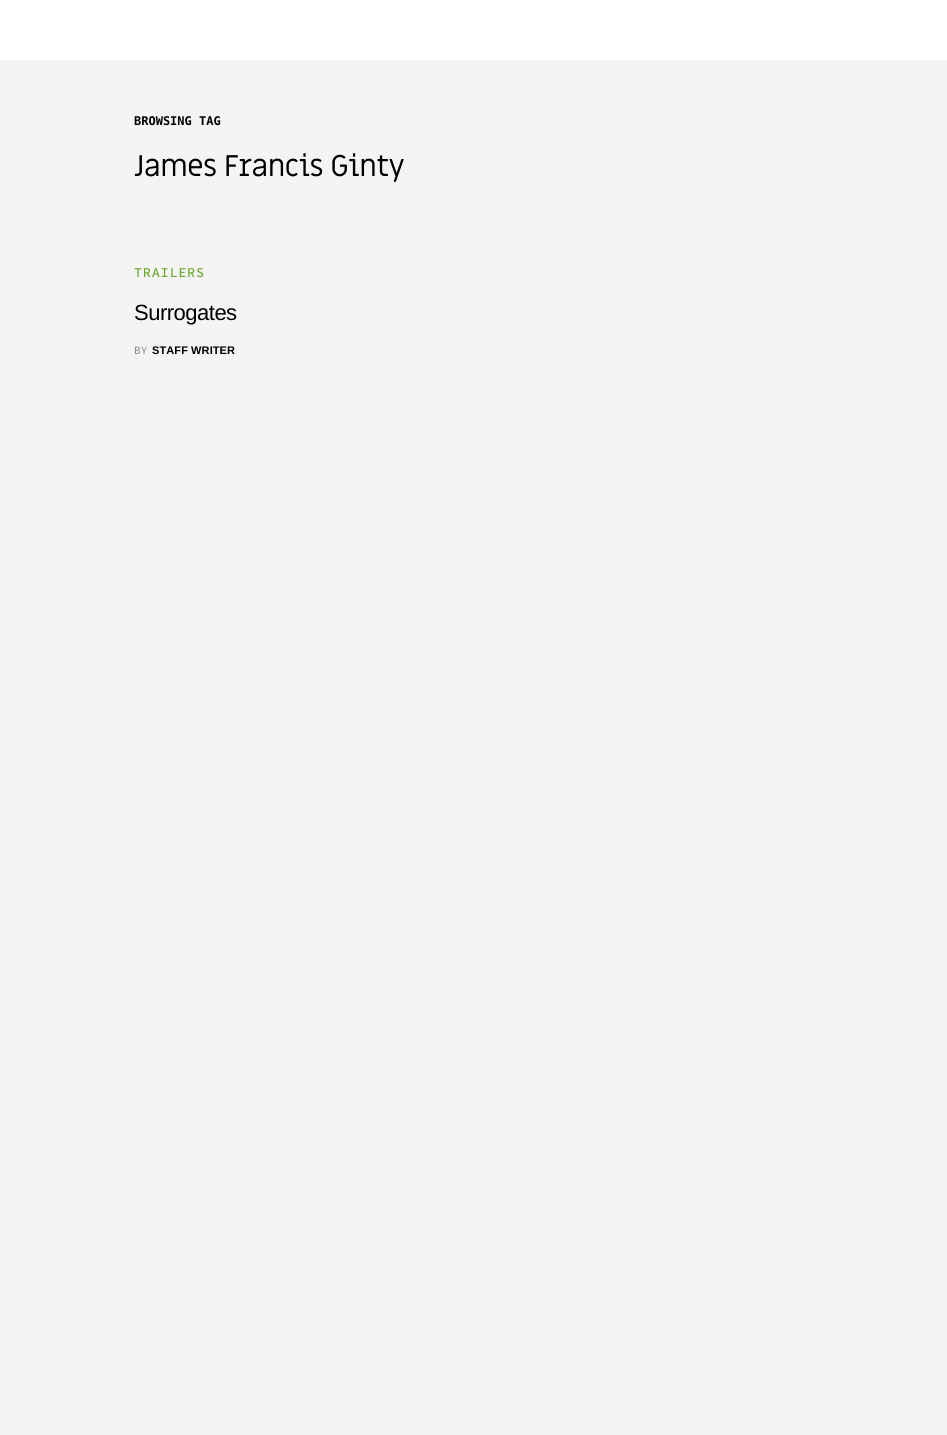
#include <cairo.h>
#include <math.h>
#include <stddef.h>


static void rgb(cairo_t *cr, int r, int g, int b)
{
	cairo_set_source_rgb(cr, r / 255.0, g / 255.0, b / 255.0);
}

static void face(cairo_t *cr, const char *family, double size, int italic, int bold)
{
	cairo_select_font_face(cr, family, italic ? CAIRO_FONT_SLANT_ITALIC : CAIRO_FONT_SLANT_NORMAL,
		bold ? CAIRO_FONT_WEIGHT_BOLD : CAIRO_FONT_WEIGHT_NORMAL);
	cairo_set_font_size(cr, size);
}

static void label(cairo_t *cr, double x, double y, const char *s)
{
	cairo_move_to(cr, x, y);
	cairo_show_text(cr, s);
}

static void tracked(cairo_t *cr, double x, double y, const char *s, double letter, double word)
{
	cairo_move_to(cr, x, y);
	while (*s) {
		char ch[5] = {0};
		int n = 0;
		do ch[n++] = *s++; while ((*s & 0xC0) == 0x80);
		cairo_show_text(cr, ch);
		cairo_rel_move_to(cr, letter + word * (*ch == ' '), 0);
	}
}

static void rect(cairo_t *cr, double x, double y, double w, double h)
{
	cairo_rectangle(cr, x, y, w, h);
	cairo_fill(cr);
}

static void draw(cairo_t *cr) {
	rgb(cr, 244, 244, 244);
	cairo_paint(cr);
	rgb(cr, 255, 255, 255);
	rect(cr, 0, 0, 947, 60);
	face(cr, "DejaVu Sans Mono", 12, 0, 1);
	rgb(cr, 0, 0, 0);
	label(cr, 134, 125, "BROWSING TAG");
	face(cr, "Miriam Libre", 30, 0, 0);
	tracked(cr, 134, 176, "James Francis Ginty", -0.75, 0);
	face(cr, "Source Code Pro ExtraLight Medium", 13.5, 0, 0);
	rgb(cr, 108, 169, 46);
	tracked(cr, 134, 277, "TRAILERS", 0.75, 0);
	face(cr, "Liberation Sans", 22, 0, 0);
	rgb(cr, 0, 0, 0);
	tracked(cr, 134, 320, "Surrogates", -0.5, 0);
	face(cr, "Source Code Pro ExtraLight", 11, 0, 0);
	rgb(cr, 129, 129, 129);
	tracked(cr, 134, 354, "BY", 0.1, 0);
	face(cr, "Liberation Sans", 11, 0, 1);
	rgb(cr, 0, 0, 0);
	tracked(cr, 152, 354, "STAFF WRITER", 0.1, 0);
}

int main(void) {
	cairo_surface_t *surface = cairo_image_surface_create(CAIRO_FORMAT_RGB24, 947, 1435);
	cairo_t *cr = cairo_create(surface);
	cairo_font_options_t *options = cairo_font_options_create();
	cairo_font_options_set_hint_metrics(options, CAIRO_HINT_METRICS_OFF);
	cairo_font_options_set_hint_style(options, CAIRO_HINT_STYLE_NONE);
	cairo_set_font_options(cr, options);
	cairo_set_miter_limit(cr, 4);
	draw(cr);
	cairo_surface_write_to_png(surface, "render.png");
	cairo_font_options_destroy(options);
	cairo_destroy(cr);
	cairo_surface_destroy(surface);
	return 0;
}
